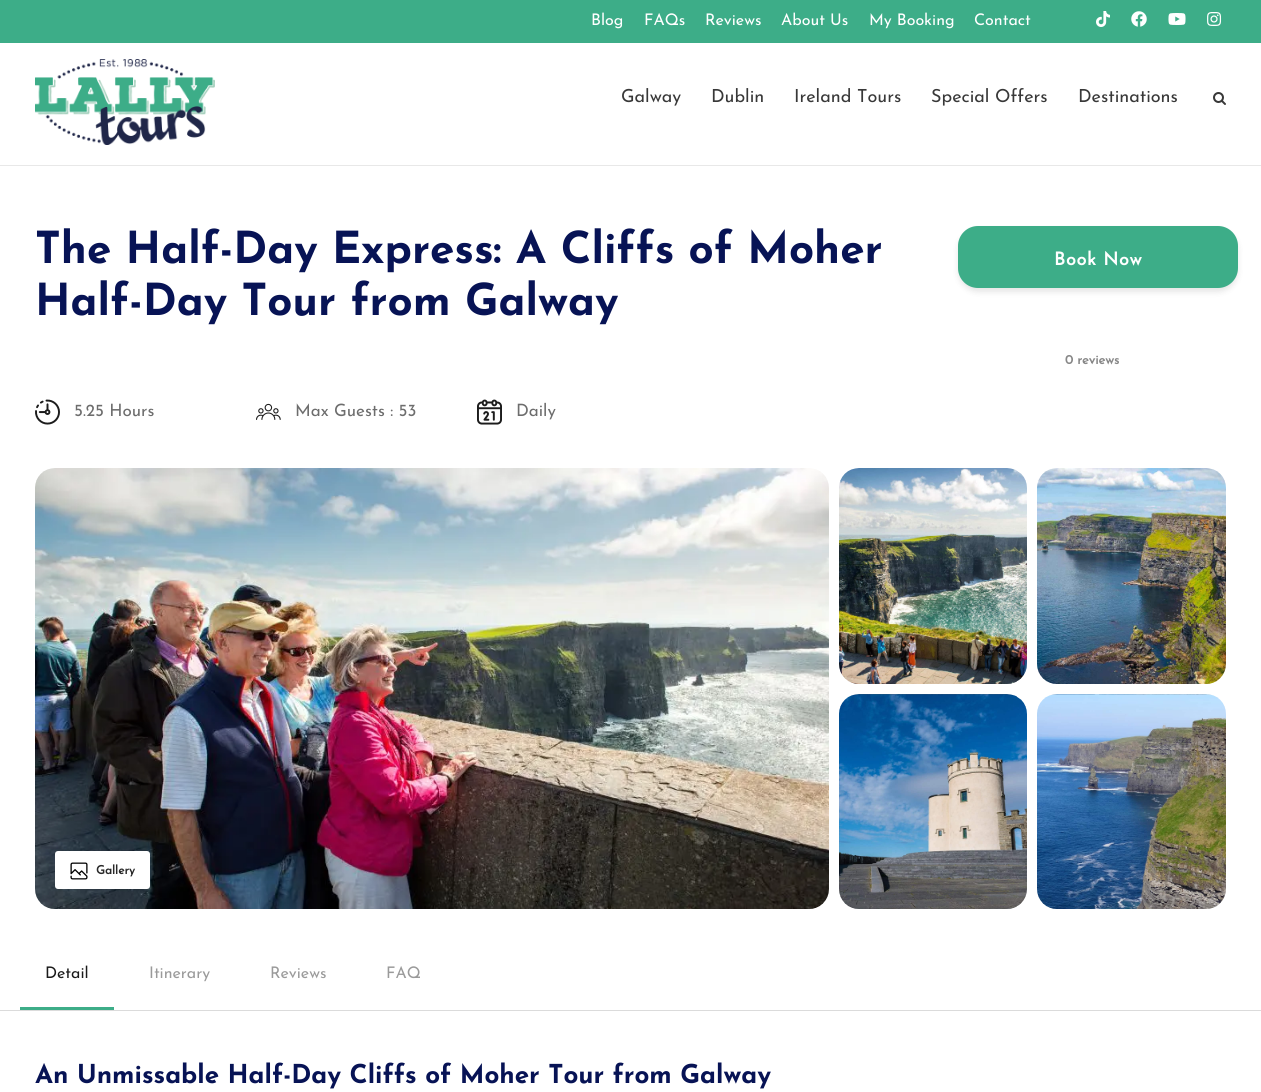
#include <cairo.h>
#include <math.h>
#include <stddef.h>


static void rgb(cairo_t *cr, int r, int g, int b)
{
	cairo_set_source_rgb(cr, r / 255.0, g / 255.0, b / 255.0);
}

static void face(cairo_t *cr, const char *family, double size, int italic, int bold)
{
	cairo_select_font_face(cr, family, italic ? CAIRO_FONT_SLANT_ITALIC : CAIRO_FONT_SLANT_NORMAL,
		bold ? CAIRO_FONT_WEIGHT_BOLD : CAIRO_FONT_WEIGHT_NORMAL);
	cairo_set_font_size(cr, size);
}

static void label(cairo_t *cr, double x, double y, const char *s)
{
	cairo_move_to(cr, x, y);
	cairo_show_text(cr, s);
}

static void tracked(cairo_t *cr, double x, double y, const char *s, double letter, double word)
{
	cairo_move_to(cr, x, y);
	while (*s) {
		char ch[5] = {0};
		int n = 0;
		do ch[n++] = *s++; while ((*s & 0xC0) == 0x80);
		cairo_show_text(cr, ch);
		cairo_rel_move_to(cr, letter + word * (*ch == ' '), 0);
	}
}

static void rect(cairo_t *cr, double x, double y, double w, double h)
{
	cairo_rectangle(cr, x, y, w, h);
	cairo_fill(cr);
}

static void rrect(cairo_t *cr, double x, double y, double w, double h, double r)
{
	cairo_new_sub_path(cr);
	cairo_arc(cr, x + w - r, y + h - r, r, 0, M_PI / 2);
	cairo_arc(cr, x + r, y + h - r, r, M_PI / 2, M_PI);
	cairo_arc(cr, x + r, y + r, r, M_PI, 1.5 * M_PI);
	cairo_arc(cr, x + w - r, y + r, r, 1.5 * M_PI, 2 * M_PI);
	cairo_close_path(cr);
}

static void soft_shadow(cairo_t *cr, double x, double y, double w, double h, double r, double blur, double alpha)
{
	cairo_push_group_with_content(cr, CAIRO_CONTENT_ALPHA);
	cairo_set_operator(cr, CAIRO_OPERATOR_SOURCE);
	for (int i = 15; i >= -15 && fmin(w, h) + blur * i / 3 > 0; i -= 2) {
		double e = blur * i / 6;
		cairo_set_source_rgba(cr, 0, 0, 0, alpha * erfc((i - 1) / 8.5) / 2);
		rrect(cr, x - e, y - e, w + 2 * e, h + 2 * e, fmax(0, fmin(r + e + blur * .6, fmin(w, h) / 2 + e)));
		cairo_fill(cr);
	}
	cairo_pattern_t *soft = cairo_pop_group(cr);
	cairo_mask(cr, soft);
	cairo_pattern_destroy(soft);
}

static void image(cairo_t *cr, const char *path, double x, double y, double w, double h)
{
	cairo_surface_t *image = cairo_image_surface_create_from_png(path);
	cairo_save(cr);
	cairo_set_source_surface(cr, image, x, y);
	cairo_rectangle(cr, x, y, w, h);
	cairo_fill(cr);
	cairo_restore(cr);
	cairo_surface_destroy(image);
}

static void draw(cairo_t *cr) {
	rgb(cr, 255, 255, 255);
	cairo_paint(cr);
	rgb(cr, 61, 173, 136);
	rect(cr, 0, 0, 1261, 43);
	face(cr, "Josefin Sans", 16, 0, 0);
	rgb(cr, 255, 255, 255);
	label(cr, 591, 25, "Blog");
	label(cr, 644, 25, "FAQs");
	label(cr, 705, 25, "Reviews");
	label(cr, 781, 25, "About Us");
	label(cr, 869, 25, "My Booking");
	label(cr, 974, 25, "Contact");
	image(cr, "image0.png", 1096, 11, 14, 16);
	image(cr, "image1.png", 1131, 11, 16, 16);
	image(cr, "image2.png", 1168, 13, 18, 12);
	image(cr, "image3.png", 1207, 12, 15, 14);
	rgb(cr, 232, 232, 232);
	rect(cr, 0, 165, 1261, 1);
	image(cr, "image4.png", 35, 59, 180, 86);
	face(cr, "Josefin Sans", 18, 0, 0);
	rgb(cr, 56, 56, 56);
	label(cr, 621, 102, "Galway");
	label(cr, 711, 102, "Dublin");
	label(cr, 794, 102, "Ireland Tours");
	label(cr, 931, 102, "Special Offers");
	label(cr, 1078, 102, "Destinations");
	image(cr, "image5.png", 1213, 92, 13, 13);
	face(cr, "Josefin Sans", 44, 0, 1);
	rgb(cr, 7, 19, 85);
	label(cr, 35, 263, "The Half-Day Express: A Cliffs of Moher");
	label(cr, 35, 315, "Half-Day Tour from Galway");
	image(cr, "image6.png", 35, 399, 25, 26);
	face(cr, "Josefin Sans", 17, 0, 0);
	rgb(cr, 109, 109, 109);
	label(cr, 74, 416, "5.25 Hours");
	image(cr, "image7.png", 256, 403, 25, 17);
	label(cr, 295, 416, "Max Guests : 53");
	image(cr, "image8.png", 477, 399, 25, 26);
	label(cr, 516, 416, "Daily");
	rgb(cr, 0, 0, 0);
	soft_shadow(cr, 958, 230, 280, 62, 20, 3, 0.1);
	rgb(cr, 61, 173, 136);
	rrect(cr, 958, 226, 280, 62, 20);
	cairo_fill(cr);
	face(cr, "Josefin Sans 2", 18, 0, 1);
	rgb(cr, 255, 255, 255);
	tracked(cr, 1054, 265, "Book Now", 0.75, 0);
	face(cr, "Josefin Sans 2", 13, 0, 1);
	rgb(cr, 136, 136, 136);
	label(cr, 1065, 364, "0 reviews");
	image(cr, "image9.png", 35, 468, 794, 441);
	image(cr, "image10.png", 839, 468, 188, 216);
	image(cr, "image11.png", 1037, 468, 189, 216);
	image(cr, "image12.png", 839, 694, 188, 215);
	image(cr, "image13.png", 1037, 694, 189, 215);
	rgb(cr, 255, 255, 255);
	rrect(cr, 55, 851, 95, 38, 3);
	cairo_fill(cr);
	image(cr, "image14.png", 70, 862, 18, 18);
	face(cr, "Josefin Sans 2", 12, 0, 1);
	rgb(cr, 42, 42, 42);
	label(cr, 96, 874, "Gallery");
	rgb(cr, 219, 219, 219);
	rect(cr, 0, 1010, 1261, 1);
	face(cr, "Josefin Sans", 16, 0, 0);
	rgb(cr, 27, 27, 27);
	label(cr, 45, 978, "Detail");
	rgb(cr, 154, 154, 154);
	label(cr, 149, 978, "Itinerary");
	label(cr, 270, 978, "Reviews");
	label(cr, 386, 978, "FAQ");
	rgb(cr, 61, 173, 136);
	rect(cr, 20, 1007, 94, 3);
	face(cr, "Josefin Sans", 26, 0, 1);
	rgb(cr, 7, 19, 85);
	label(cr, 35, 1083, "An Unmissable Half-Day Cliffs of Moher Tour from Galway");
}

int main(void) {
	cairo_surface_t *surface = cairo_image_surface_create(CAIRO_FORMAT_RGB24, 1261, 1092);
	cairo_t *cr = cairo_create(surface);
	cairo_font_options_t *options = cairo_font_options_create();
	cairo_font_options_set_hint_metrics(options, CAIRO_HINT_METRICS_OFF);
	cairo_font_options_set_hint_style(options, CAIRO_HINT_STYLE_NONE);
	cairo_set_font_options(cr, options);
	cairo_set_miter_limit(cr, 4);
	draw(cr);
	cairo_surface_write_to_png(surface, "render.png");
	cairo_font_options_destroy(options);
	cairo_destroy(cr);
	cairo_surface_destroy(surface);
	return 0;
}
